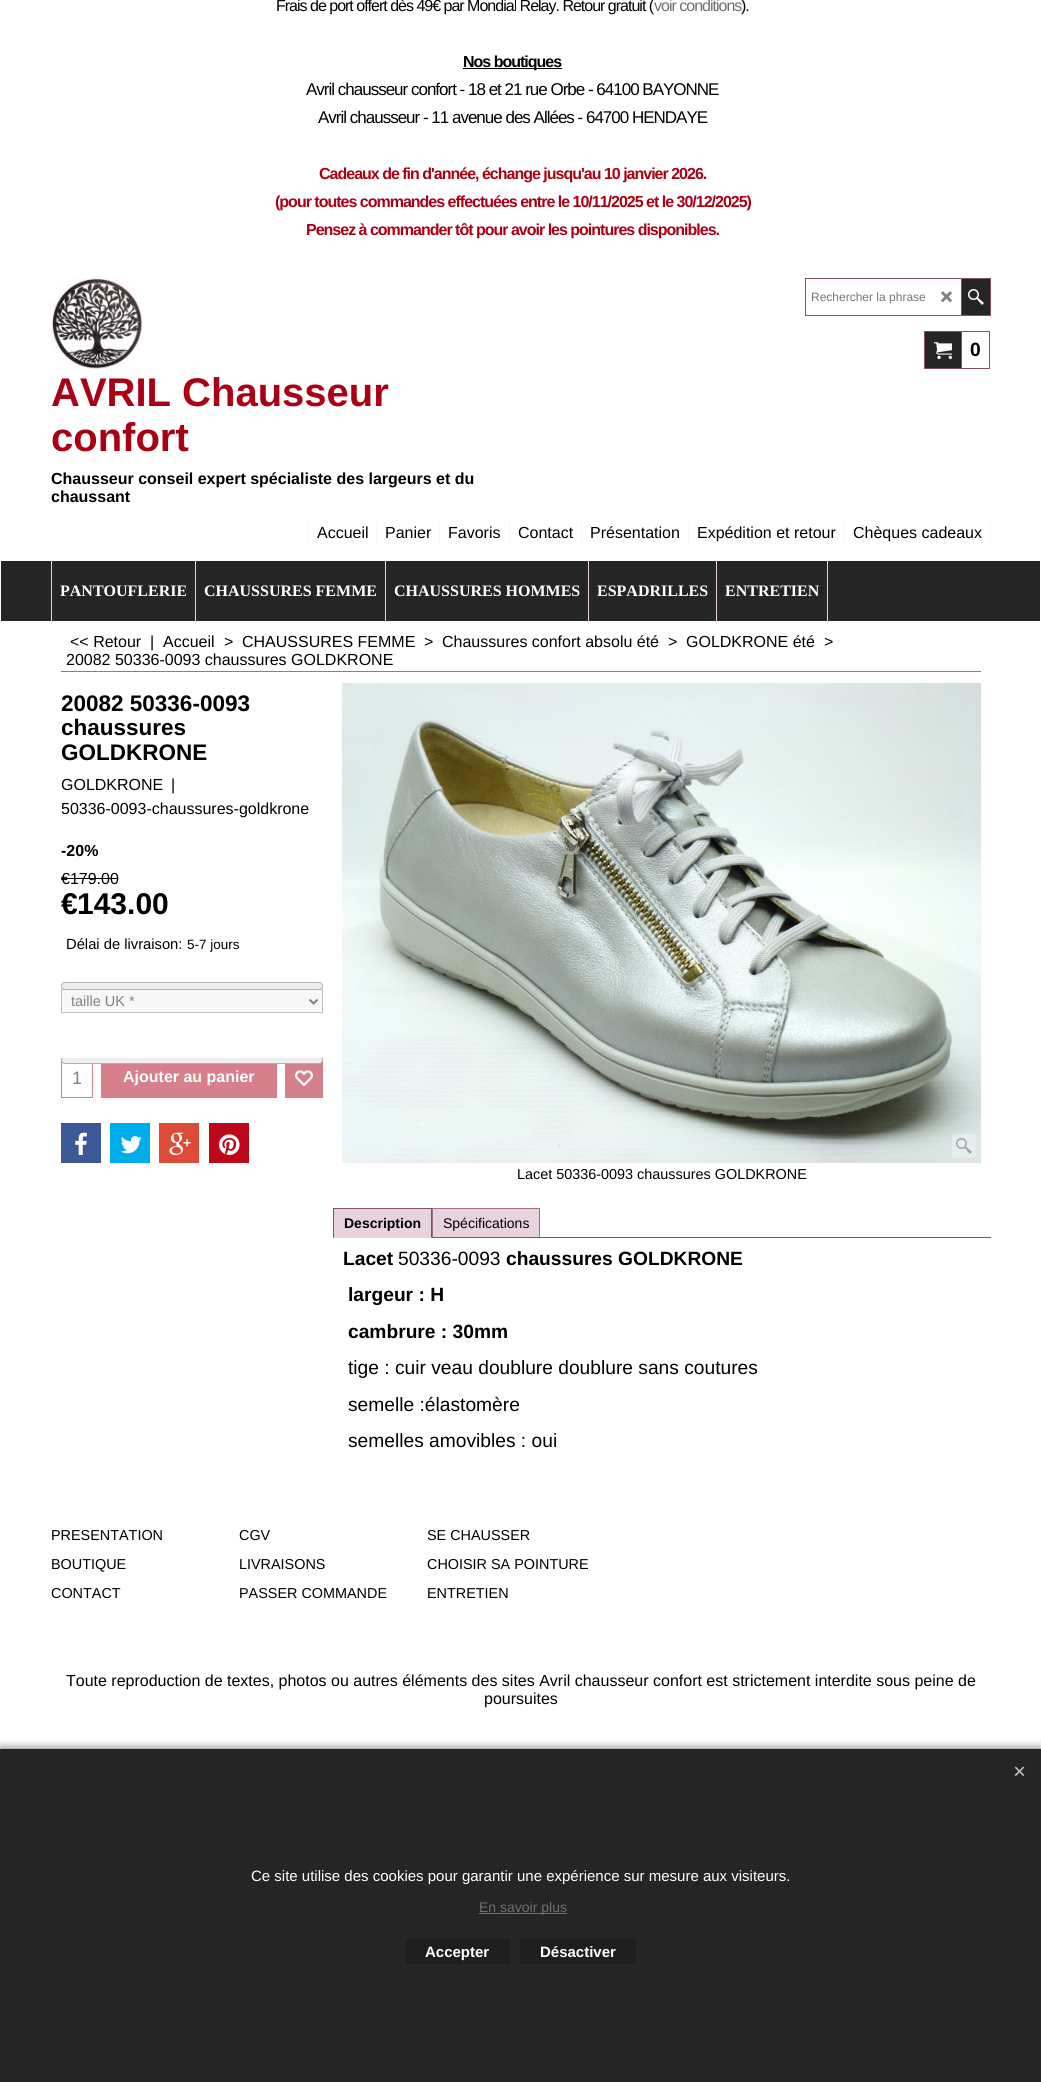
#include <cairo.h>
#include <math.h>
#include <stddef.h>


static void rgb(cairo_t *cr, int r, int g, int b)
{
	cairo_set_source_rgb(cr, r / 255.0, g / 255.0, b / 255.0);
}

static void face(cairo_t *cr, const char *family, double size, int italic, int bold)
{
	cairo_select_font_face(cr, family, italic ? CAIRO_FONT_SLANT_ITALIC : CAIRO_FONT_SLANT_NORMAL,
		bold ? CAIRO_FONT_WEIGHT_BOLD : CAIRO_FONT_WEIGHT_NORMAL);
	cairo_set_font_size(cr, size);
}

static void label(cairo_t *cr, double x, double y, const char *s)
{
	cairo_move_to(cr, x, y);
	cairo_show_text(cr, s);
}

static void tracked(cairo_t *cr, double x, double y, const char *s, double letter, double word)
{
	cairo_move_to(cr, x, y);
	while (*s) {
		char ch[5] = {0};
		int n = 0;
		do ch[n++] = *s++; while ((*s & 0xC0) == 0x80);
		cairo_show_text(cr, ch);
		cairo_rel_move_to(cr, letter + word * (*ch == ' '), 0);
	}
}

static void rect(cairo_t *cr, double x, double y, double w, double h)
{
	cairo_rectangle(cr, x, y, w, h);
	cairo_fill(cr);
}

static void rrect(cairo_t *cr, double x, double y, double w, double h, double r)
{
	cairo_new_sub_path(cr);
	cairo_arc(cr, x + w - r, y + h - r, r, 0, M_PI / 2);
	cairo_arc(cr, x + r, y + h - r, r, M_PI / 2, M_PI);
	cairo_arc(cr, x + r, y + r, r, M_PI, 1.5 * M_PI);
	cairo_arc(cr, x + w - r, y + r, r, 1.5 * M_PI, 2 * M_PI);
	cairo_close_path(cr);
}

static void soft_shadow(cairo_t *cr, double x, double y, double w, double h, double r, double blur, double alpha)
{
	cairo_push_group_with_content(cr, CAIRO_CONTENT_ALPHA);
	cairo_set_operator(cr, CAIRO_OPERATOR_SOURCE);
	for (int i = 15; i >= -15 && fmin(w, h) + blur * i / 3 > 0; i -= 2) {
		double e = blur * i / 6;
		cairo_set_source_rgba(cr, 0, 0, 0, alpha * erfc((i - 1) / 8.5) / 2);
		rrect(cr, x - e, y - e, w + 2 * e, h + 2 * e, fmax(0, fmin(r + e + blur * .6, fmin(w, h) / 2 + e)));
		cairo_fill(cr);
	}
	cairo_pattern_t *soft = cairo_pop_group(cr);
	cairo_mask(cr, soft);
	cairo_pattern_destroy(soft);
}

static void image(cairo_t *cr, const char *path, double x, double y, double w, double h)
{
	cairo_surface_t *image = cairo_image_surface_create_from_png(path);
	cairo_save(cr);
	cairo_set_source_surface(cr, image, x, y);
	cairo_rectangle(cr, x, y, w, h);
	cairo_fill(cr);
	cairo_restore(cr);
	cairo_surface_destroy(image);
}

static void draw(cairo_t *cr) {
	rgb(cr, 255, 255, 255);
	cairo_paint(cr);
	face(cr, "Liberation Sans", 16, 0, 0);
	rgb(cr, 0, 0, 0);
	tracked(cr, 276, 11, "Frais de port offert dès 49€ par Mondial Relay. Retour gratuit (", -1, 0);
	rgb(cr, 111, 111, 111);
	tracked(cr, 654, 11, "voir conditions", -1, 0);
	rgb(cr, 0, 0, 0);
	tracked(cr, 741, 11, ").", -1, 0);
	rect(cr, 463, 68, 99, 1);
	face(cr, "Liberation Sans", 16, 0, 1);
	tracked(cr, 463, 67, "Nos boutiques", -1, 0);
	face(cr, "Liberation Sans", 17, 0, 0);
	tracked(cr, 306, 95, "Avril chausseur confort - 18 et 21 rue Orbe - 64100 BAYONNE", -1, 0);
	tracked(cr, 318, 123, "Avril chausseur - 11 avenue des Allées - 64700 HENDAYE", -1, 0);
	face(cr, "Liberation Sans", 16, 0, 1);
	rgb(cr, 170, 0, 20);
	tracked(cr, 319, 179, "Cadeaux de fin d'année, échange jusqu'au 10 janvier 2026.", -1, 0);
	tracked(cr, 275, 207, "(pour toutes commandes effectuées entre le 10/11/2025 et le 30/12/2025)", -1, 0);
	tracked(cr, 306, 235, "Pensez à commander tôt pour avoir les pointures disponibles.", -1, 0);
	cairo_rectangle(cr, 805.5, 278.5, 185, 37);
	rgb(cr, 132, 78, 106);
	cairo_set_line_width(cr, 1);
	cairo_stroke(cr);
	face(cr, "Liberation Sans", 12, 0, 0);
	rgb(cr, 117, 117, 117);
	label(cr, 811, 301, "Rechercher la phrase");
	image(cr, "image0.png", 941, 291, 11, 12);
	rgb(cr, 37, 37, 37);
	rect(cr, 962, 279, 28, 36);
	rgb(cr, 132, 78, 106);
	rect(cr, 961, 279, 1, 36);
	image(cr, "image1.png", 968, 289, 16, 16);
	rgb(cr, 37, 37, 37);
	cairo_rectangle(cr, 924.5, 331.5, 37, 37);
	cairo_fill_preserve(cr);
	rgb(cr, 132, 78, 106);
	cairo_stroke(cr);
	image(cr, "image2.png", 934, 342, 18, 18);
	cairo_rectangle(cr, 961.5, 331.5, 28, 37);
	cairo_stroke(cr);
	face(cr, "Liberation Sans", 19.2, 0, 1);
	rgb(cr, 0, 0, 0);
	label(cr, 970, 356, "0");
	image(cr, "image3.png", 51, 278, 92, 91);
	face(cr, "Liberation Sans", 40, 0, 1);
	rgb(cr, 170, 0, 20);
	label(cr, 51, 406, "AVRIL Chausseur");
	label(cr, 51, 451, "confort");
	face(cr, "Liberation Sans", 16, 0, 1);
	rgb(cr, 0, 0, 0);
	label(cr, 51, 484, "Chausseur conseil expert spécialiste des largeurs et du");
	label(cr, 51, 502, "chaussant");
	rgb(cr, 246, 249, 252);
	rect(cr, 308, 521, 1, 25);
	face(cr, "Liberation Sans", 16, 0, 0);
	rgb(cr, 0, 0, 0);
	label(cr, 317, 538, "Accueil");
	rgb(cr, 246, 249, 252);
	rect(cr, 376, 521, 1, 25);
	rgb(cr, 0, 0, 0);
	label(cr, 385, 538, "Panier");
	rgb(cr, 246, 249, 252);
	rect(cr, 439, 521, 1, 25);
	rgb(cr, 0, 0, 0);
	label(cr, 448, 538, "Favoris");
	rgb(cr, 246, 249, 252);
	rect(cr, 509, 521, 1, 25);
	rgb(cr, 0, 0, 0);
	label(cr, 518, 538, "Contact");
	rgb(cr, 246, 249, 252);
	rect(cr, 581, 521, 1, 25);
	rgb(cr, 0, 0, 0);
	label(cr, 590, 538, "Présentation");
	rgb(cr, 246, 249, 252);
	rect(cr, 688, 521, 1, 25);
	rgb(cr, 0, 0, 0);
	label(cr, 697, 538, "Expédition et retour");
	rgb(cr, 246, 249, 252);
	rect(cr, 844, 521, 1, 25);
	rgb(cr, 0, 0, 0);
	label(cr, 853, 538, "Chèques cadeaux");
	rgb(cr, 246, 249, 252);
	rect(cr, 990, 521, 1, 25);
	rgb(cr, 37, 37, 37);
	rect(cr, 1, 561, 1039, 60);
	rgb(cr, 230, 211, 221);
	rect(cr, 51, 561, 1, 60);
	face(cr, "Liberation Serif", 16, 0, 1);
	rgb(cr, 255, 255, 255);
	label(cr, 60, 596, "PANTOUFLERIE");
	rgb(cr, 230, 211, 221);
	rect(cr, 195, 561, 1, 60);
	rgb(cr, 255, 255, 255);
	label(cr, 204, 596, "CHAUSSURES FEMME");
	rgb(cr, 230, 211, 221);
	rect(cr, 385, 561, 1, 60);
	rgb(cr, 255, 255, 255);
	label(cr, 394, 596, "CHAUSSURES HOMMES");
	rgb(cr, 230, 211, 221);
	rect(cr, 588, 561, 1, 60);
	rgb(cr, 255, 255, 255);
	label(cr, 597, 596, "ESPADRILLES");
	rgb(cr, 230, 211, 221);
	rect(cr, 716, 561, 1, 60);
	rgb(cr, 255, 255, 255);
	label(cr, 725, 596, "ENTRETIEN");
	rgb(cr, 230, 211, 221);
	rect(cr, 827, 561, 1, 60);
	rgb(cr, 161, 112, 137);
	rect(cr, 61, 671, 920, 1);
	face(cr, "Liberation Sans", 16, 0, 0);
	rgb(cr, 0, 0, 0);
	label(cr, 70, 647, "<< Retour");
	label(cr, 150, 647, "|");
	label(cr, 163, 647, "Accueil");
	label(cr, 224, 647, ">");
	label(cr, 242, 647, "CHAUSSURES FEMME");
	label(cr, 424, 647, ">");
	label(cr, 442, 647, "Chaussures confort absolu été");
	label(cr, 668, 647, ">");
	label(cr, 686, 647, "GOLDKRONE été");
	label(cr, 824, 647, ">");
	label(cr, 66, 665, "20082 50336-0093 chaussures GOLDKRONE");
	face(cr, "Liberation Sans", 22.5, 0, 1);
	label(cr, 61, 711, "20082 50336-0093");
	label(cr, 61, 735, "chaussures");
	label(cr, 61, 760, "GOLDKRONE");
	face(cr, "Liberation Sans", 16, 0, 0);
	label(cr, 61, 790, "GOLDKRONE");
	label(cr, 171, 790, "|");
	label(cr, 61, 814, "50336-0093-chaussures-goldkrone");
	face(cr, "Liberation Sans", 16, 0, 1);
	label(cr, 61, 856, "-20%");
	face(cr, "Liberation Sans", 16, 0, 0);
	label(cr, 61, 884, "€179.00");
	rect(cr, 61, 878, 57, 1);
	cairo_save(cr);
	cairo_rectangle(cr, 61, 833, 262, 88);
	cairo_clip(cr);
	face(cr, "Liberation Sans", 30, 0, 1);
	label(cr, 61, 914, "€");
	cairo_restore(cr);
	face(cr, "Liberation Sans", 30, 0, 1);
	label(cr, 77, 914, "143.00");
	face(cr, "Liberation Sans", 14.75, 0, 0);
	label(cr, 66, 949, "Délai de livraison:");
	face(cr, "Liberation Sans", 13.5, 0, 0);
	label(cr, 187, 949, "5-7 jours");
	rgb(cr, 247, 247, 247);
	cairo_rectangle(cr, 61.5, 989.5, 261, 23);
	cairo_fill_preserve(cr);
	rgb(cr, 196, 196, 196);
	cairo_stroke(cr);
	rgb(cr, 239, 239, 239);
	rrect(cr, 61.5, 982.5, 261, 7, 3.5);
	cairo_fill_preserve(cr);
	rgb(cr, 178, 178, 178);
	cairo_stroke(cr);
	cairo_new_path(cr);
	cairo_move_to(cr, 309.5, 999.5);
	cairo_line_to(cr, 313.5, 1003.5);
	cairo_line_to(cr, 317.5, 999.5);
	rgb(cr, 128, 128, 128);
	cairo_set_line_width(cr, 2);
	cairo_stroke(cr);
	face(cr, "Liberation Sans", 14.5, 0, 0);
	label(cr, 71, 1006, "taille UK *");
	rgb(cr, 213, 128, 138);
	rect(cr, 61, 1058, 32, 40);
	rgb(cr, 255, 255, 255);
	rect(cr, 62, 1062, 30, 35);
	rgb(cr, 213, 128, 138);
	rect(cr, 285, 1058, 38, 40);
	cairo_save(cr);
	cairo_rectangle(cr, 61, 1058, 262, 40);
	cairo_clip(cr);
	rgb(cr, 239, 239, 239);
	rrect(cr, 61.5, 1056.5, 261, 7, 3.5);
	cairo_fill_preserve(cr);
	rgb(cr, 178, 178, 178);
	cairo_set_line_width(cr, 1);
	cairo_stroke(cr);
	cairo_restore(cr);
	face(cr, "Liberation Sans", 18, 0, 0);
	rgb(cr, 128, 128, 128);
	label(cr, 72, 1084, "1");
	rgb(cr, 213, 128, 138);
	rect(cr, 101, 1064, 176, 34);
	face(cr, "Liberation Sans", 16, 0, 1);
	rgb(cr, 255, 255, 255);
	label(cr, 123, 1082, "Ajouter au panier");
	image(cr, "image4.png", 295, 1070, 18, 16);
	rgb(cr, 60, 88, 151);
	rect(cr, 61, 1123, 40, 40);
	image(cr, "image5.png", 75, 1132, 12, 23);
	rgb(cr, 0, 173, 236);
	rect(cr, 110, 1123, 40, 40);
	image(cr, "image6.png", 120, 1136, 22, 18);
	rgb(cr, 221, 76, 57);
	rect(cr, 159, 1123, 40, 40);
	image(cr, "image7.png", 169, 1132, 22, 23);
	rgb(cr, 189, 8, 28);
	rect(cr, 209, 1123, 40, 40);
	image(cr, "image8.png", 219, 1134, 21, 21);
	image(cr, "image9.png", 342, 683, 639, 480);
	cairo_set_source_rgba(cr, 1, 1, 1, 0.3);
	rect(cr, 952, 1134, 24, 24);
	image(cr, "image10.png", 956, 1138, 16, 16);
	face(cr, "Liberation Sans", 14.4, 0, 0);
	rgb(cr, 0, 0, 0);
	label(cr, 517, 1179, "Lacet 50336-0093 chaussures GOLDKRONE");
	rgb(cr, 230, 211, 221);
	rect(cr, 333, 1209, 99, 29);
	rgb(cr, 132, 78, 106);
	rect(cr, 333, 1208, 99, 1);
	cairo_new_path(cr);
	cairo_move_to(cr, 432, 1208);
	cairo_line_to(cr, 432, 1238);
	cairo_line_to(cr, 431, 1237);
	cairo_line_to(cr, 431, 1209);
	cairo_close_path(cr);
	cairo_fill(cr);
	cairo_new_path(cr);
	cairo_move_to(cr, 333, 1238);
	cairo_line_to(cr, 333, 1208);
	cairo_line_to(cr, 334, 1209);
	cairo_line_to(cr, 334, 1237);
	cairo_close_path(cr);
	cairo_fill(cr);
	face(cr, "Liberation Sans", 14, 0, 1);
	rgb(cr, 0, 0, 0);
	label(cr, 344, 1228, "Description");
	rgb(cr, 230, 211, 221);
	rect(cr, 433, 1209, 106, 28);
	rgb(cr, 161, 112, 137);
	rect(cr, 432, 1208, 108, 1);
	rect(cr, 539, 1208, 1, 29);
	rect(cr, 432, 1208, 1, 29);
	face(cr, "Liberation Sans", 14, 0, 0);
	rgb(cr, 0, 0, 0);
	label(cr, 443, 1228, "Spécifications");
	rgb(cr, 132, 78, 106);
	rect(cr, 432, 1237, 559, 1);
	face(cr, "Liberation Sans", 19.2, 0, 1);
	rgb(cr, 0, 0, 0);
	label(cr, 343, 1265, "Lacet");
	face(cr, "Liberation Sans", 19.2, 0, 0);
	label(cr, 398, 1265, "50336-0093");
	face(cr, "Liberation Sans", 19.2, 0, 1);
	label(cr, 506, 1265, "chaussures GOLDKRONE");
	label(cr, 348, 1301, "largeur : H");
	label(cr, 348, 1338, "cambrure : 30mm");
	face(cr, "Liberation Sans", 19.2, 0, 0);
	label(cr, 348, 1374, "tige : cuir veau doublure doublure sans coutures");
	label(cr, 348, 1411, "semelle :élastomère");
	label(cr, 348, 1447, "semelles amovibles : oui");
	face(cr, "Liberation Sans", 14.4, 0, 0);
	label(cr, 51, 1540, "PRESENTATION");
	label(cr, 51, 1569, "BOUTIQUE");
	label(cr, 51, 1598, "CONTACT");
	label(cr, 239, 1540, "CGV");
	label(cr, 239, 1569, "LIVRAISONS");
	label(cr, 239, 1598, "PASSER COMMANDE");
	label(cr, 427, 1540, "SE CHAUSSER");
	label(cr, 427, 1569, "CHOISIR SA POINTURE");
	label(cr, 427, 1598, "ENTRETIEN");
	face(cr, "Liberation Sans", 16, 0, 0);
	label(cr, 66, 1686, "Toute reproduction de textes, photos ou autres éléments des sites Avril chausseur confort est strictement interdite sous peine de");
	label(cr, 484, 1704, "poursuites");
	rgb(cr, 102, 102, 102);
	soft_shadow(cr, 0, 1749, 1041, 333, 0, 5, 1);
	rgb(cr, 37, 37, 37);
	rect(cr, 0, 1749, 1041, 333);
	image(cr, "image11.png", 1014, 1766, 11, 10);
	face(cr, "Liberation Sans", 15, 0, 0);
	rgb(cr, 255, 255, 255);
	label(cr, 251, 1881, "Ce site utilise des cookies pour garantir une expérience sur mesure aux visiteurs.");
	rgb(cr, 111, 111, 111);
	rect(cr, 479, 1913, 88, 1);
	face(cr, "Liberation Sans", 14, 0, 0);
	label(cr, 479, 1912, "En savoir plus");
	rgb(cr, 30, 30, 30);
	rect(cr, 405, 1939, 105, 25);
	face(cr, "Liberation Sans", 15, 0, 1);
	rgb(cr, 255, 255, 255);
	label(cr, 425, 1957, "Accepter");
	rgb(cr, 30, 30, 30);
	rect(cr, 520, 1939, 116, 25);
	rgb(cr, 255, 255, 255);
	label(cr, 540, 1957, "Désactiver");
}

int main(void) {
	cairo_surface_t *surface = cairo_image_surface_create(CAIRO_FORMAT_RGB24, 1041, 2082);
	cairo_t *cr = cairo_create(surface);
	cairo_font_options_t *options = cairo_font_options_create();
	cairo_font_options_set_hint_metrics(options, CAIRO_HINT_METRICS_OFF);
	cairo_font_options_set_hint_style(options, CAIRO_HINT_STYLE_NONE);
	cairo_set_font_options(cr, options);
	cairo_set_miter_limit(cr, 4);
	draw(cr);
	cairo_surface_write_to_png(surface, "render.png");
	cairo_font_options_destroy(options);
	cairo_destroy(cr);
	cairo_surface_destroy(surface);
	return 0;
}
